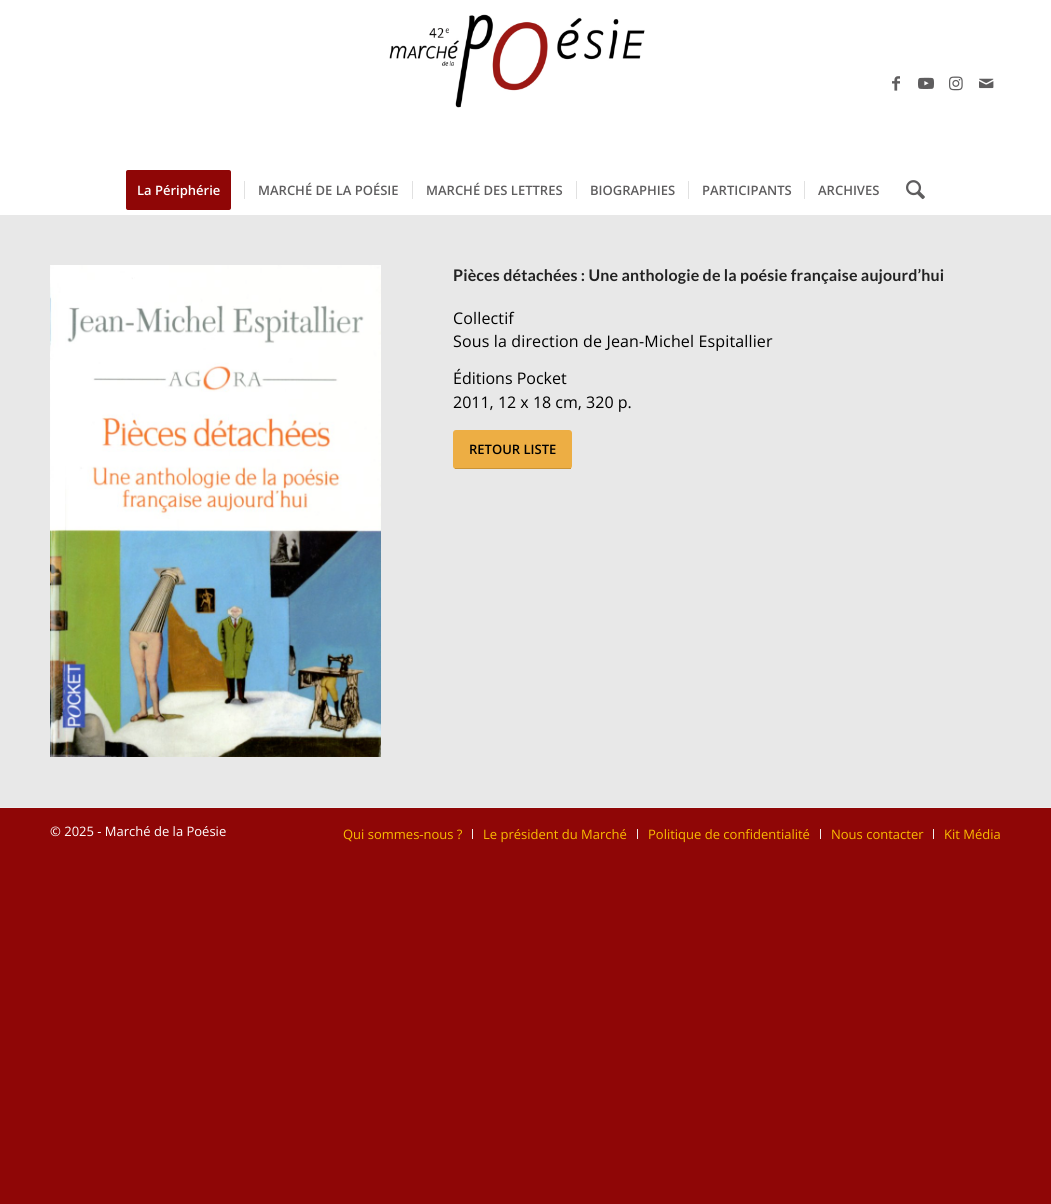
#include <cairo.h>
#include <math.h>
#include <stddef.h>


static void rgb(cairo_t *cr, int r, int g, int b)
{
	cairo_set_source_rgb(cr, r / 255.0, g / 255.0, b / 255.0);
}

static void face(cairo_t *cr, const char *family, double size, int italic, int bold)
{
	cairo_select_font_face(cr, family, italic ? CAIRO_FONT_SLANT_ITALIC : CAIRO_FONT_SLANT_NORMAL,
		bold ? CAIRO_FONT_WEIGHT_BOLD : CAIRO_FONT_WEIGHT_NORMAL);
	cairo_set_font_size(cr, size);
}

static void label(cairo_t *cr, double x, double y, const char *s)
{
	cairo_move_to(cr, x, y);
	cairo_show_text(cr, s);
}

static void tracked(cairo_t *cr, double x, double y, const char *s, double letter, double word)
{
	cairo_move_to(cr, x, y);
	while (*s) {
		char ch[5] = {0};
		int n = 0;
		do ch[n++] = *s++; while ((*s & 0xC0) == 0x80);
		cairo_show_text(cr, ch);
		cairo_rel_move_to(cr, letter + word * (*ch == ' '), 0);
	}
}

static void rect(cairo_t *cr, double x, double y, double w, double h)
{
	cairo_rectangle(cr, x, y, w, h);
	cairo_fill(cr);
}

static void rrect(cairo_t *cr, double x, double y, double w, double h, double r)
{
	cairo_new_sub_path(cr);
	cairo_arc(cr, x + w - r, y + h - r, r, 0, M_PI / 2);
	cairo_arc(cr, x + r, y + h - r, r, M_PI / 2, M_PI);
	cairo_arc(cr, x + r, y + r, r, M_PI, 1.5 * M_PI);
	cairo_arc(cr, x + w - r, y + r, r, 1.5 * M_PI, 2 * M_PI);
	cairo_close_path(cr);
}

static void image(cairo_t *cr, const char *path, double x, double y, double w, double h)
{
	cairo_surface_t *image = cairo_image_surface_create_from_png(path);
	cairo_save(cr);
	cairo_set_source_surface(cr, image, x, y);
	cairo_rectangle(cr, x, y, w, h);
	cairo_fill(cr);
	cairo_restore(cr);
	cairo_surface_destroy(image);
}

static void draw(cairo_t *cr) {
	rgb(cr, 143, 6, 6);
	cairo_paint(cr);
	rgb(cr, 255, 255, 255);
	rect(cr, 0, 0, 1051, 215);
	image(cr, "image0.png", 389, 14, 256, 94);
	image(cr, "image1.png", 892, 76, 8, 15);
	image(cr, "image2.png", 918, 77, 16, 12);
	image(cr, "image3.png", 949, 76, 14, 15);
	image(cr, "image4.png", 979, 78, 15, 11);
	rgb(cr, 143, 6, 6);
	rrect(cr, 127, 171, 103, 38, 1);
	cairo_fill_preserve(cr);
	cairo_stroke(cr);
	face(cr, "Open Sans SemiBold", 13, 0, 0);
	rgb(cr, 255, 255, 255);
	label(cr, 137, 195, "La Périphérie");
	rgb(cr, 94, 93, 94);
	label(cr, 258, 195, "MARCHÉ DE LA POÉSIE");
	rgb(cr, 225, 225, 225);
	rect(cr, 244, 181, 1, 18);
	rgb(cr, 94, 93, 94);
	label(cr, 426, 195, "MARCHÉ DES LETTRES");
	rgb(cr, 225, 225, 225);
	rect(cr, 412, 181, 1, 18);
	rgb(cr, 94, 93, 94);
	label(cr, 590, 195, "BIOGRAPHIES");
	rgb(cr, 225, 225, 225);
	rect(cr, 576, 181, 1, 18);
	rgb(cr, 94, 93, 94);
	label(cr, 702, 195, "PARTICIPANTS");
	rgb(cr, 225, 225, 225);
	rect(cr, 688, 181, 1, 18);
	rgb(cr, 94, 93, 94);
	label(cr, 818, 195, "ARCHIVES");
	rgb(cr, 225, 225, 225);
	rect(cr, 804, 181, 1, 18);
	image(cr, "image5.png", 906, 180, 19, 20);
	rgb(cr, 232, 232, 232);
	rect(cr, 0, 215, 1051, 592);
	image(cr, "image6.png", 50, 265, 331, 492);
	face(cr, "Lato", 16, 0, 1);
	rgb(cr, 34, 34, 34);
	tracked(cr, 453, 281, "Pièces détachées : Une anthologie de la poésie française aujourd’hui", 0.15, 0);
	face(cr, "Open Sans", 16, 0, 0);
	rgb(cr, 0, 0, 0);
	tracked(cr, 453, 324, "Collectif", 0.15, 0);
	tracked(cr, 453, 347, "Sous la direction de Jean-Michel Espitallier", 0.15, 0);
	label(cr, 453, 384, "Éditions Pocket");
	label(cr, 453, 408, "2011, 12 x 18 cm, 320 p.");
	rgb(cr, 237, 174, 68);
	rrect(cr, 453, 430, 119, 39, 3);
	cairo_fill(cr);
	rgb(cr, 202, 147, 54);
	rect(cr, 455, 468, 116, 1);
	face(cr, "Open Sans SemiBold", 13, 0, 0);
	rgb(cr, 0, 0, 0);
	label(cr, 469, 454, "RETOUR LISTE");
	rgb(cr, 238, 238, 238);
	rect(cr, 0, 807, 1051, 1);
	face(cr, "Open Sans", 13, 0, 0);
	rgb(cr, 255, 255, 255);
	label(cr, 50, 836, "© 2025 - Marché de la Poésie");
	rgb(cr, 250, 188, 0);
	label(cr, 343, 839, "Qui sommes-nous ?");
	rgb(cr, 238, 238, 238);
	rect(cr, 472, 829, 1, 10);
	rgb(cr, 250, 188, 0);
	label(cr, 483, 839, "Le président du Marché");
	rgb(cr, 238, 238, 238);
	rect(cr, 637, 829, 1, 10);
	rgb(cr, 250, 188, 0);
	label(cr, 648, 839, "Politique de confidentialité");
	rgb(cr, 238, 238, 238);
	rect(cr, 820, 829, 1, 10);
	rgb(cr, 250, 188, 0);
	label(cr, 831, 839, "Nous contacter");
	rgb(cr, 238, 238, 238);
	rect(cr, 933, 829, 1, 10);
	rgb(cr, 250, 188, 0);
	label(cr, 944, 839, "Kit Média");
}

int main(void) {
	cairo_surface_t *surface = cairo_image_surface_create(CAIRO_FORMAT_RGB24, 1051, 1204);
	cairo_t *cr = cairo_create(surface);
	cairo_font_options_t *options = cairo_font_options_create();
	cairo_font_options_set_hint_metrics(options, CAIRO_HINT_METRICS_OFF);
	cairo_font_options_set_hint_style(options, CAIRO_HINT_STYLE_NONE);
	cairo_set_font_options(cr, options);
	cairo_set_miter_limit(cr, 4);
	draw(cr);
	cairo_surface_write_to_png(surface, "render.png");
	cairo_font_options_destroy(options);
	cairo_destroy(cr);
	cairo_surface_destroy(surface);
	return 0;
}
